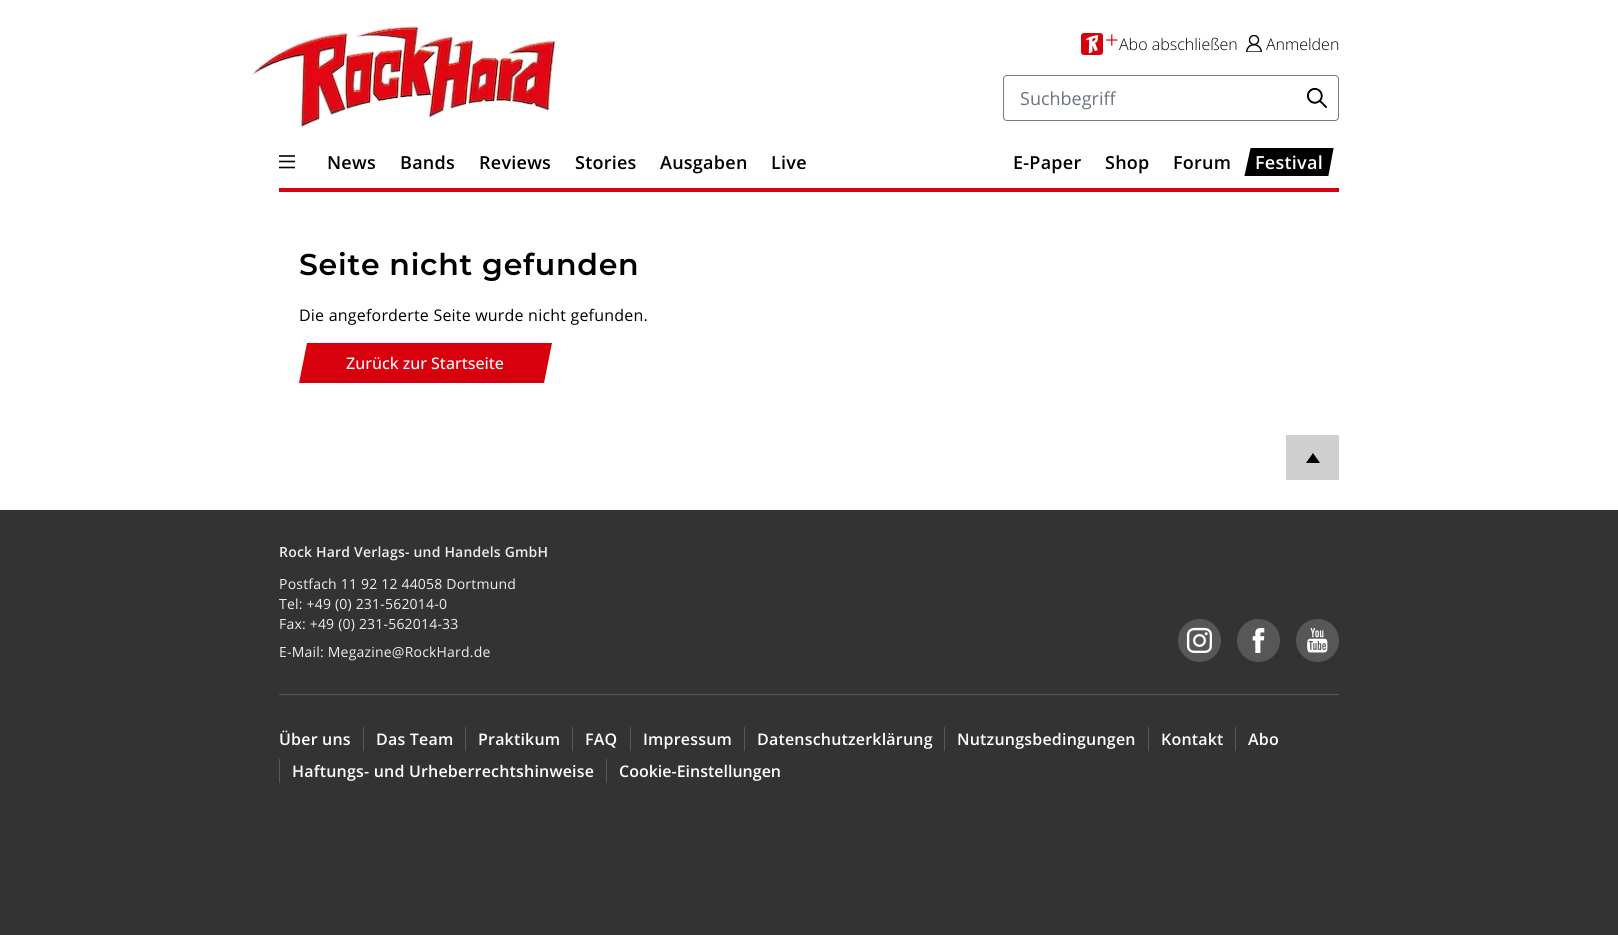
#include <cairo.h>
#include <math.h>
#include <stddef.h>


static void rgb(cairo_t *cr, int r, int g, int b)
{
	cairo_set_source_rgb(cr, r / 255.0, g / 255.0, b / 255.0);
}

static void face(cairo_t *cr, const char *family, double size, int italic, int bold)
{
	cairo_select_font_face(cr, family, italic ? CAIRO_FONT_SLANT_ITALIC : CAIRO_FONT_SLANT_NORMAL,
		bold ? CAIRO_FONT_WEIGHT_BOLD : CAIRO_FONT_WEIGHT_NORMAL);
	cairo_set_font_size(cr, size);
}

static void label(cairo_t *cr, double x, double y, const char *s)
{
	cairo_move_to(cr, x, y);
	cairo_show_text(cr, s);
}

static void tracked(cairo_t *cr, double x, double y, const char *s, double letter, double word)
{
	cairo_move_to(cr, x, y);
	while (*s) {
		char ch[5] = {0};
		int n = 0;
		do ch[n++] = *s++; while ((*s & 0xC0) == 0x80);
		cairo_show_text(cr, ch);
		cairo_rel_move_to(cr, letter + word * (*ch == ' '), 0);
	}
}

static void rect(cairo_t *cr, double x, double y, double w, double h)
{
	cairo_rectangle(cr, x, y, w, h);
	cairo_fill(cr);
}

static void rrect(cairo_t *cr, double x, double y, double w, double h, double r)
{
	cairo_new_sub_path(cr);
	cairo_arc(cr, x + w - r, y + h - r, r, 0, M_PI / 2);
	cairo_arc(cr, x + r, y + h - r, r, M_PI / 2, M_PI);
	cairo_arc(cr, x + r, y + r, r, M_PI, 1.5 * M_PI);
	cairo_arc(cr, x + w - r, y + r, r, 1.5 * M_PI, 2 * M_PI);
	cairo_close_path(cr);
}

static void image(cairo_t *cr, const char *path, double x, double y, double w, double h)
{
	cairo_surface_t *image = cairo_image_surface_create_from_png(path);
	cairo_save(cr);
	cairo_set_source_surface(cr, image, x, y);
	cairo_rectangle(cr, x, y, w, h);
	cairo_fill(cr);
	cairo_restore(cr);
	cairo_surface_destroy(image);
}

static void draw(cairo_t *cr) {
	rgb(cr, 255, 255, 255);
	cairo_paint(cr);
	image(cr, "image0.png", 248, 26, 309, 102);
	image(cr, "image1.png", 1081, 33, 22, 22);
	face(cr, "Liberation Serif", 24, 0, 0);
	rgb(cr, 217, 0, 13);
	label(cr, 1105, 48, "+");
	face(cr, "Open Sans Light", 16, 0, 0);
	rgb(cr, 0, 0, 0);
	label(cr, 1119, 50, "Abo abschließen");
	image(cr, "image2.png", 1246, 35, 16, 17);
	label(cr, 1266, 50, "Anmelden");
	rrect(cr, 1003.5, 75.5, 335, 45, 3.5);
	rgb(cr, 122, 122, 122);
	cairo_set_line_width(cr, 1);
	cairo_stroke(cr);
	face(cr, "Open Sans", 18, 0, 0);
	rgb(cr, 107, 114, 128);
	label(cr, 1020, 105, "Suchbegriff");
	image(cr, "image3.png", 1307, 88, 20, 20);
	cairo_new_path(cr);
	cairo_move_to(cr, 295, 167.5);
	cairo_line_to(cr, 279, 167.5);
	rgb(cr, 0, 0, 0);
	cairo_set_line_width(cr, 1.6);
	cairo_stroke(cr);
	rgb(cr, 51, 51, 51);
	rect(cr, 279, 155, 16, 2);
	cairo_new_path(cr);
	cairo_move_to(cr, 295, 161.5);
	cairo_line_to(cr, 279, 161.5);
	rgb(cr, 0, 0, 0);
	cairo_stroke(cr);
	face(cr, "Open Sans SemiBold", 18, 0, 0);
	tracked(cr, 327, 169, "News", 0.25, 0);
	tracked(cr, 400, 169, "Bands", 0.25, 0);
	tracked(cr, 479, 169, "Reviews", 0.25, 0);
	tracked(cr, 575, 169, "Stories", 0.25, 0);
	tracked(cr, 660, 169, "Ausgaben", 0.25, 0);
	tracked(cr, 771, 169, "Live", 0.25, 0);
	tracked(cr, 1013, 169, "E-Paper", 0.25, 0);
	tracked(cr, 1105, 169, "Shop", 0.25, 0);
	tracked(cr, 1173, 169, "Forum", 0.25, 0);
	cairo_save(cr);
	cairo_rectangle(cr, 1243, 148, 92, 28);
	cairo_clip(cr);
	cairo_new_path(cr);
	cairo_move_to(cr, 1251, 146);
	cairo_line_to(cr, 1334, 146);
	cairo_line_to(cr, 1328, 178);
	cairo_line_to(cr, 1244, 178);
	cairo_close_path(cr);
	cairo_fill(cr);
	cairo_restore(cr);
	rgb(cr, 255, 255, 255);
	tracked(cr, 1255, 169, "Festival", 0.25, 0);
	rgb(cr, 217, 0, 13);
	rect(cr, 279, 188, 1060, 4);
	face(cr, "Montserrat SemiBold", 30, 0, 0);
	rgb(cr, 0, 0, 0);
	tracked(cr, 299, 275, "Seite nicht gefunden", 0.75, 0);
	face(cr, "Open Sans", 16, 0, 0);
	tracked(cr, 299, 321, "Die angeforderte Seite wurde nicht gefunden.", 0.2, 0);
	rgb(cr, 217, 0, 13);
	cairo_new_path(cr);
	cairo_move_to(cr, 307, 343);
	cairo_line_to(cr, 552, 343);
	cairo_line_to(cr, 544, 383);
	cairo_line_to(cr, 299, 383);
	cairo_close_path(cr);
	cairo_fill(cr);
	face(cr, "Open Sans Medium", 16, 0, 0);
	rgb(cr, 255, 255, 255);
	label(cr, 346, 369, "Zurück zur Startseite");
	rgb(cr, 207, 207, 207);
	rect(cr, 1286, 435, 53, 45);
	rgb(cr, 0, 0, 0);
	cairo_new_path(cr);
	cairo_move_to(cr, 1320, 463);
	cairo_line_to(cr, 1306, 463);
	cairo_line_to(cr, 1313, 453);
	cairo_close_path(cr);
	cairo_fill(cr);
	rgb(cr, 51, 51, 51);
	rect(cr, 0, 510, 1618, 425);
	rgb(cr, 87, 87, 87);
	rect(cr, 279, 694, 1060, 1);
	face(cr, "Open Sans SemiBold", 14, 0, 0);
	rgb(cr, 238, 238, 238);
	tracked(cr, 279, 557, "Rock Hard Verlags- und Handels GmbH", 0.2, 0);
	face(cr, "Open Sans", 14, 0, 0);
	tracked(cr, 279, 589, "Postfach 11 92 12 44058 Dortmund", 0.2, 0);
	tracked(cr, 279, 609, "Tel: +49 (0) 231-562014-0", 0.2, 0);
	tracked(cr, 279, 629, "Fax: +49 (0) 231-562014-33", 0.2, 0);
	tracked(cr, 279, 657, "E-Mail: Megazine@RockHard.de", 0.2, 0);
	image(cr, "image4.png", 1178, 619, 43, 43);
	image(cr, "image5.png", 1237, 619, 43, 43);
	image(cr, "image6.png", 1296, 619, 43, 43);
	face(cr, "Open Sans SemiBold", 16, 0, 0);
	rgb(cr, 255, 255, 255);
	tracked(cr, 279, 745, "Über uns", 0.2, 0);
	rgb(cr, 87, 87, 87);
	rect(cr, 363, 727, 1, 24);
	rgb(cr, 255, 255, 255);
	tracked(cr, 376, 745, "Das Team", 0.2, 0);
	rgb(cr, 87, 87, 87);
	rect(cr, 465, 727, 1, 24);
	rgb(cr, 255, 255, 255);
	tracked(cr, 478, 745, "Praktikum", 0.2, 0);
	rgb(cr, 87, 87, 87);
	rect(cr, 572, 727, 1, 24);
	rgb(cr, 255, 255, 255);
	tracked(cr, 585, 745, "FAQ", 0.2, 0);
	rgb(cr, 87, 87, 87);
	rect(cr, 630, 727, 1, 24);
	rgb(cr, 255, 255, 255);
	tracked(cr, 643, 745, "Impressum", 0.2, 0);
	rgb(cr, 87, 87, 87);
	rect(cr, 744, 727, 1, 24);
	rgb(cr, 255, 255, 255);
	tracked(cr, 757, 745, "Datenschutzerklärung", 0.2, 0);
	rgb(cr, 87, 87, 87);
	rect(cr, 944, 727, 1, 24);
	rgb(cr, 255, 255, 255);
	tracked(cr, 957, 745, "Nutzungsbedingungen", 0.2, 0);
	rgb(cr, 87, 87, 87);
	rect(cr, 1148, 727, 1, 24);
	rgb(cr, 255, 255, 255);
	tracked(cr, 1161, 745, "Kontakt", 0.2, 0);
	rgb(cr, 87, 87, 87);
	rect(cr, 1235, 727, 1, 24);
	rgb(cr, 255, 255, 255);
	tracked(cr, 1248, 745, "Abo", 0.2, 0);
	rgb(cr, 87, 87, 87);
	rect(cr, 279, 759, 1, 24);
	rgb(cr, 255, 255, 255);
	tracked(cr, 292, 777, "Haftungs- und Urheberrechtshinweise", 0.2, 0);
	rgb(cr, 87, 87, 87);
	rect(cr, 606, 759, 1, 24);
	rgb(cr, 255, 255, 255);
	label(cr, 619, 777, "Cookie-Einstellungen");
}

int main(void) {
	cairo_surface_t *surface = cairo_image_surface_create(CAIRO_FORMAT_RGB24, 1618, 935);
	cairo_t *cr = cairo_create(surface);
	cairo_font_options_t *options = cairo_font_options_create();
	cairo_font_options_set_hint_metrics(options, CAIRO_HINT_METRICS_OFF);
	cairo_font_options_set_hint_style(options, CAIRO_HINT_STYLE_NONE);
	cairo_set_font_options(cr, options);
	cairo_set_miter_limit(cr, 4);
	draw(cr);
	cairo_surface_write_to_png(surface, "render.png");
	cairo_font_options_destroy(options);
	cairo_destroy(cr);
	cairo_surface_destroy(surface);
	return 0;
}
